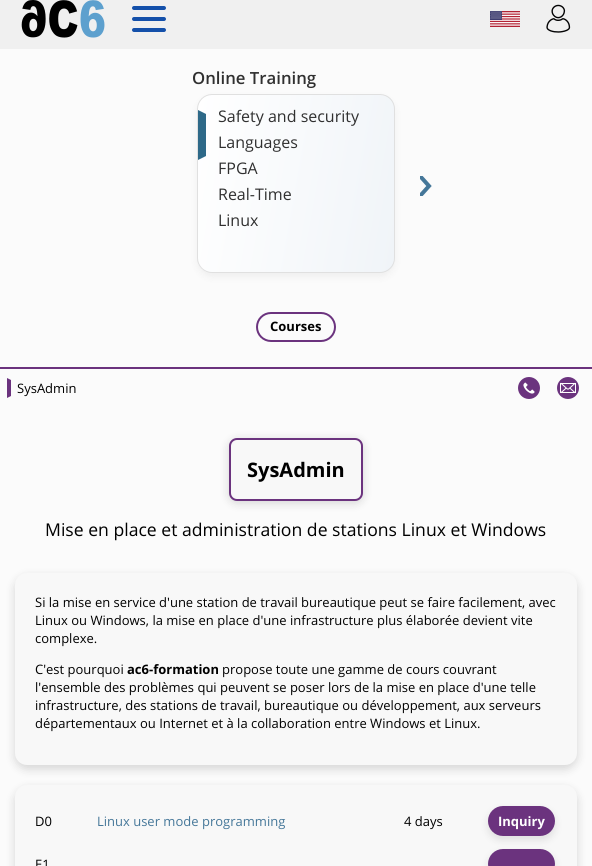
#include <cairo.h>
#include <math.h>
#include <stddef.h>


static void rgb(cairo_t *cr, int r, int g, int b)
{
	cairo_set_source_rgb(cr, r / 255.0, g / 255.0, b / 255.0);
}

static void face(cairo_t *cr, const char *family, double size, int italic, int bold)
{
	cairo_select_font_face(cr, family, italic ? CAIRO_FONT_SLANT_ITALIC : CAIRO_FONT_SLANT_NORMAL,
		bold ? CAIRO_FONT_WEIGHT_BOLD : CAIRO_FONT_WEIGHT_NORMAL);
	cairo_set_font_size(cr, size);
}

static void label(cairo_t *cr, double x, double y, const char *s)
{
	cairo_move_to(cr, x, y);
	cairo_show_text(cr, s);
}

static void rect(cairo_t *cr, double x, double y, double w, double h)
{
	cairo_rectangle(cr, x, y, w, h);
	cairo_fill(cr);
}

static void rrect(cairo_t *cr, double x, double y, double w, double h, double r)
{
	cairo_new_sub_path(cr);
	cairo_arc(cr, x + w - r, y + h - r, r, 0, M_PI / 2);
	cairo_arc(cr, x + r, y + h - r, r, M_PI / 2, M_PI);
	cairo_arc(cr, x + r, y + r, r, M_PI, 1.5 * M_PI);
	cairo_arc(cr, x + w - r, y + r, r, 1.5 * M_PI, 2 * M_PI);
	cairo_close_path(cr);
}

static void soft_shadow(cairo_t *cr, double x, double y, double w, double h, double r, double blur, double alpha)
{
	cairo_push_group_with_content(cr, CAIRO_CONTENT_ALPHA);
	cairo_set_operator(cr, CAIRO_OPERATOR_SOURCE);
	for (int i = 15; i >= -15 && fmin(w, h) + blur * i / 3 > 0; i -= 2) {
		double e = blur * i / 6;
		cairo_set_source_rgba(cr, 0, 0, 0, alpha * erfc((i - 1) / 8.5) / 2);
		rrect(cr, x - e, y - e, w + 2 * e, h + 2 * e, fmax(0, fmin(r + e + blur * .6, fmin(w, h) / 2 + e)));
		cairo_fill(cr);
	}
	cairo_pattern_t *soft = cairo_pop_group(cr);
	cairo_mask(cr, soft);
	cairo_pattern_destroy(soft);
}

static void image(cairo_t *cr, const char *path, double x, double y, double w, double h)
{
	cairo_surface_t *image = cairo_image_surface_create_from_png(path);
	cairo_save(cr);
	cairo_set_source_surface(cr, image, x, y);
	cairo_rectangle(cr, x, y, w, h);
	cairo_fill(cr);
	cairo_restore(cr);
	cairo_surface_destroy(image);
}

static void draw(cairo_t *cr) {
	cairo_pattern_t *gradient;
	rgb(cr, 251, 251, 251);
	cairo_paint(cr);
	rgb(cr, 240, 240, 240);
	rect(cr, 0, 0, 592, 49);
	image(cr, "image0.png", 21, 0, 84, 38);
	rgb(cr, 20, 80, 170);
	rrect(cr, 132, 17, 34, 4, 2);
	cairo_fill(cr);
	rrect(cr, 132, 6, 34, 4, 2);
	cairo_fill(cr);
	rrect(cr, 132, 28, 34, 4, 2);
	cairo_fill(cr);
	image(cr, "image1.png", 490, 11, 30, 16);
	image(cr, "image2.png", 546, 4, 25, 29);
	rgb(cr, 0, 0, 0);
	soft_shadow(cr, 197, 98, 198, 179, 15, 4, 0.05);
	face(cr, "Open Sans SemiBold", 16.75, 0, 0);
	rgb(cr, 48, 48, 48);
	label(cr, 192, 84, "Online Training");
	cairo_save(cr);
	rrect(cr, 197, 94, 198, 179, 15);
	cairo_clip(cr);
	gradient = cairo_pattern_create_linear(186, 164, 406, 203);
	cairo_pattern_add_color_stop_rgba(gradient, 0, 1, 1, 1, 1);
	cairo_pattern_add_color_stop_rgba(gradient, 1, 0.941, 0.957, 0.973, 1);
	cairo_set_source(cr, gradient);
	cairo_pattern_destroy(gradient);
	rect(cr, 198, 95, 196, 177);
	cairo_restore(cr);
	rrect(cr, 197.5, 94.5, 197, 178, 14.5);
	rgb(cr, 224, 224, 224);
	cairo_set_line_width(cr, 1);
	cairo_stroke(cr);
	rgb(cr, 46, 105, 136);
	cairo_new_path(cr);
	cairo_move_to(cr, 198, 110);
	cairo_line_to(cr, 206, 114);
	cairo_line_to(cr, 206, 156);
	cairo_line_to(cr, 198, 160);
	cairo_close_path(cr);
	cairo_fill(cr);
	face(cr, "Open Sans", 16, 0, 0);
	rgb(cr, 48, 48, 48);
	label(cr, 218, 122, "Safety and security");
	label(cr, 218, 148, "Languages");
	label(cr, 218, 174, "FPGA");
	label(cr, 218, 200, "Real-Time");
	label(cr, 218, 226, "Linux");
	cairo_save(cr);
	cairo_rectangle(cr, 420, 176, 13, 20);
	cairo_clip(cr);
	cairo_new_path(cr);
	cairo_move_to(cr, 420, 176);
	cairo_line_to(cr, 429, 186);
	cairo_line_to(cr, 420, 196);
	rgb(cr, 69, 119, 153);
	cairo_set_line_width(cr, 4);
	cairo_stroke(cr);
	cairo_restore(cr);
	rgb(cr, 107, 51, 126);
	rect(cr, 0, 367, 592, 2);
	rrect(cr, 257, 313, 78, 28, 14);
	cairo_set_line_width(cr, 2);
	cairo_stroke(cr);
	face(cr, "Open Sans", 13, 0, 1);
	rgb(cr, 0, 0, 0);
	label(cr, 270, 331, "Courses");
	rgb(cr, 107, 51, 126);
	cairo_new_path(cr);
	cairo_move_to(cr, 7, 378);
	cairo_line_to(cr, 11, 380);
	cairo_line_to(cr, 11, 396);
	cairo_line_to(cr, 7, 398);
	cairo_close_path(cr);
	cairo_fill(cr);
	face(cr, "Open Sans", 13, 0, 0);
	rgb(cr, 0, 0, 0);
	label(cr, 17, 393, "SysAdmin");
	image(cr, "image3.png", 518, 377, 22, 22);
	image(cr, "image4.png", 557, 377, 22, 22);
	rgb(cr, 0, 0, 0);
	soft_shadow(cr, 229, 440, 134, 63, 8, 5, 0.15);
	rgb(cr, 248, 248, 248);
	rrect(cr, 230, 439, 132, 61, 7);
	cairo_fill_preserve(cr);
	rgb(cr, 107, 51, 126);
	cairo_stroke(cr);
	face(cr, "Open Sans", 20, 0, 1);
	rgb(cr, 0, 0, 0);
	label(cr, 247, 477, "SysAdmin");
	face(cr, "Open Sans", 17.6, 0, 0);
	label(cr, 45, 536, "Mise en place et administration de stations Linux et Windows");
	rgb(cr, 0, 0, 0);
	soft_shadow(cr, 15, 577, 562, 192, 12, 5, 0.15);
	rgb(cr, 248, 248, 248);
	rrect(cr, 15, 573, 562, 192, 12);
	cairo_fill(cr);
	face(cr, "Open Sans", 13, 0, 0);
	rgb(cr, 0, 0, 0);
	label(cr, 35, 607, "Si la mise en service d'une station de travail bureautique peut se faire facilement, avec");
	label(cr, 35, 625, "Linux ou Windows, la mise en place d'une infrastructure plus élaborée devient vite");
	label(cr, 35, 643, "complexe.");
	label(cr, 35, 674, "C'est pourquoi");
	face(cr, "Open Sans", 13, 0, 1);
	label(cr, 127, 674, "ac6-formation");
	face(cr, "Open Sans", 13, 0, 0);
	label(cr, 222, 674, "propose toute une gamme de cours couvrant");
	label(cr, 35, 692, "l'ensemble des problèmes qui peuvent se poser lors de la mise en place d'une telle");
	label(cr, 35, 710, "infrastructure, des stations de travail, bureautique ou développement, aux serveurs");
	label(cr, 35, 728, "départementaux ou Internet et à la collaboration entre Windows et Linux.");
	rgb(cr, 0, 0, 0);
	soft_shadow(cr, 15, 789, 562, 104, 12, 5, 0.15);
	rgb(cr, 248, 248, 248);
	rrect(cr, 15, 785, 562, 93, 12);
	cairo_fill(cr);
	rgb(cr, 0, 0, 0);
	label(cr, 35, 826, "D0");
	rgb(cr, 69, 119, 153);
	label(cr, 97, 826, "Linux user mode programming");
	rgb(cr, 0, 0, 0);
	label(cr, 404, 826, "4 days");
	rgb(cr, 0, 0, 0);
	soft_shadow(cr, 488, 810, 67, 30, 15, 4, 0.1);
	rgb(cr, 107, 51, 126);
	rrect(cr, 489, 807, 65, 28, 14);
	cairo_fill_preserve(cr);
	cairo_stroke(cr);
	face(cr, "Open Sans", 13, 0, 1);
	rgb(cr, 255, 255, 255);
	label(cr, 498, 826, "Inquiry");
	face(cr, "Open Sans", 13, 0, 0);
	rgb(cr, 0, 0, 0);
	label(cr, 35, 869, "E1");
	rgb(cr, 0, 0, 0);
	soft_shadow(cr, 488, 853, 67, 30, 15, 4, 0.1);
	rgb(cr, 107, 51, 126);
	rrect(cr, 489, 850, 65, 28, 14);
	cairo_fill_preserve(cr);
	cairo_stroke(cr);
}

int main(void) {
	cairo_surface_t *surface = cairo_image_surface_create(CAIRO_FORMAT_RGB24, 592, 866);
	cairo_t *cr = cairo_create(surface);
	cairo_font_options_t *options = cairo_font_options_create();
	cairo_font_options_set_hint_metrics(options, CAIRO_HINT_METRICS_OFF);
	cairo_font_options_set_hint_style(options, CAIRO_HINT_STYLE_NONE);
	cairo_set_font_options(cr, options);
	cairo_set_miter_limit(cr, 4);
	draw(cr);
	cairo_surface_write_to_png(surface, "render.png");
	cairo_font_options_destroy(options);
	cairo_destroy(cr);
	cairo_surface_destroy(surface);
	return 0;
}
